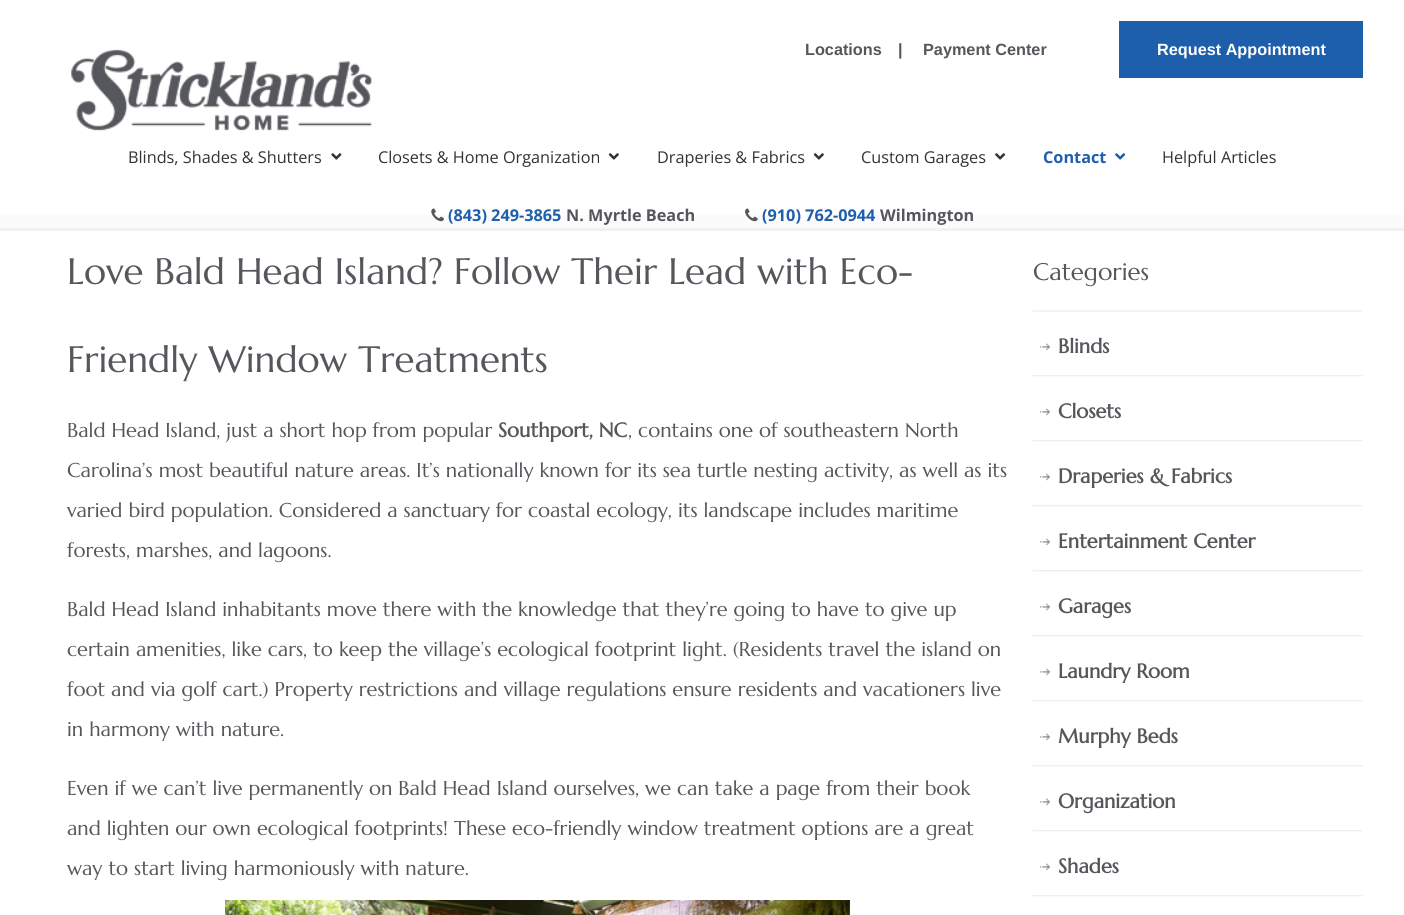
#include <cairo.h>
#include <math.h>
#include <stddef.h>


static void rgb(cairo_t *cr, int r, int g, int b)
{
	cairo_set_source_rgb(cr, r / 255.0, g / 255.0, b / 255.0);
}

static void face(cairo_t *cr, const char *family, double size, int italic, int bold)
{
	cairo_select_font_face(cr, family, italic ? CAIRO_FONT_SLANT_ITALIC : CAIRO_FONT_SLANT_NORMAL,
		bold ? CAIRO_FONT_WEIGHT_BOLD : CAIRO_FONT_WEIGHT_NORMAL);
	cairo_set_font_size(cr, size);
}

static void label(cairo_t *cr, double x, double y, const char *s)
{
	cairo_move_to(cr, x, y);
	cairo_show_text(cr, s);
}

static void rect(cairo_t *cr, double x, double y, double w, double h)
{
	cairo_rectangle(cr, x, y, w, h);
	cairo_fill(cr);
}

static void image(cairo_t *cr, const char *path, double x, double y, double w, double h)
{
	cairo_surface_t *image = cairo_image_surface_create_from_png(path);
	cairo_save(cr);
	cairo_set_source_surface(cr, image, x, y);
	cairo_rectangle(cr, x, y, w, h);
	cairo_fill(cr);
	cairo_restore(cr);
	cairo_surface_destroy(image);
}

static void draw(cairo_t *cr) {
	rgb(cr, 251, 251, 251);
	cairo_paint(cr);
	rgb(cr, 255, 255, 255);
	rect(cr, 0, 0, 1404, 215);
	image(cr, "image0.png", 71, 49, 301, 82);
	face(cr, "Liberation Sans", 16.25, 0, 1);
	rgb(cr, 86, 86, 92);
	label(cr, 805, 55, "Locations");
	label(cr, 898, 55, "|");
	label(cr, 923, 55, "Payment Center");
	rgb(cr, 30, 95, 171);
	rect(cr, 1119, 21, 244, 57);
	rgb(cr, 255, 255, 255);
	label(cr, 1157, 55, "Request Appointment");
	face(cr, "Open Sans", 16.25, 0, 0);
	rgb(cr, 51, 51, 51);
	label(cr, 128, 163, "Blinds, Shades & Shutters");
	image(cr, "image1.png", 331, 153, 11, 7);
	label(cr, 378, 163, "Closets & Home Organization");
	image(cr, "image2.png", 608, 153, 11, 7);
	label(cr, 657, 163, "Draperies & Fabrics");
	image(cr, "image2.png", 813, 153, 11, 7);
	label(cr, 861, 163, "Custom Garages");
	image(cr, "image3.png", 995, 153, 11, 7);
	face(cr, "Open Sans", 16.25, 0, 1);
	rgb(cr, 30, 95, 171);
	label(cr, 1043, 163, "Contact");
	image(cr, "image4.png", 1115, 153, 11, 7);
	face(cr, "Open Sans", 16.25, 0, 0);
	rgb(cr, 51, 51, 51);
	label(cr, 1162, 163, "Helpful Articles");
	image(cr, "image5.png", 431, 208, 13, 14);
	face(cr, "Open Sans", 16.25, 0, 1);
	rgb(cr, 30, 95, 171);
	label(cr, 448, 221, "(843) 249-3865");
	rgb(cr, 86, 86, 92);
	label(cr, 566, 221, "N. Myrtle Beach");
	image(cr, "image6.png", 745, 208, 13, 14);
	rgb(cr, 30, 95, 171);
	label(cr, 762, 221, "(910) 762-0944");
	rgb(cr, 86, 86, 92);
	label(cr, 880, 221, "Wilmington");
	rgb(cr, 255, 255, 255);
	rect(cr, 0, 231, 1404, 684);
	rgb(cr, 242, 242, 242);
	rect(cr, 0, 228, 1404, 3);
	face(cr, "Marcellus", 36.7, 0, 0);
	rgb(cr, 86, 86, 92);
	label(cr, 67, 284, "Love Bald Head Island? Follow Their Lead with Eco-");
	label(cr, 67, 372, "Friendly Window Treatments");
	face(cr, "Marcellus", 20, 0, 0);
	label(cr, 67, 437, "Bald Head Island, just a short hop from popular");
	face(cr, "Marcellus", 20, 0, 1);
	label(cr, 498, 437, "Southport, NC");
	face(cr, "Marcellus", 20, 0, 0);
	label(cr, 628, 437, ", contains one of southeastern North");
	label(cr, 67, 477, "Carolina’s most beautiful nature areas. It’s nationally known for its sea turtle nesting activity, as well as its");
	label(cr, 67, 517, "varied bird population. Considered a sanctuary for coastal ecology, its landscape includes maritime");
	label(cr, 67, 557, "forests, marshes, and lagoons.");
	label(cr, 67, 616, "Bald Head Island inhabitants move there with the knowledge that they’re going to have to give up");
	label(cr, 67, 656, "certain amenities, like cars, to keep the village’s ecological footprint light. (Residents travel the island on");
	label(cr, 67, 696, "foot and via golf cart.) Property restrictions and village regulations ensure residents and vacationers live");
	label(cr, 67, 736, "in harmony with nature.");
	label(cr, 67, 795, "Even if we can’t live permanently on Bald Head Island ourselves, we can take a page from their book");
	label(cr, 67, 835, "and lighten our own ecological footprints! These eco-friendly window treatment options are a great");
	label(cr, 67, 875, "way to start living harmoniously with nature.");
	image(cr, "image7.png", 225, 900, 625, 15);
	image(cr, "image8.png", 1032, 310, 331, 2);
	face(cr, "Marcellus", 24, 0, 0);
	label(cr, 1033, 280, "Categories");
	image(cr, "image9.png", 1032, 375, 331, 2);
	image(cr, "image10.png", 1039, 343, 12, 8);
	face(cr, "Marcellus", 20, 0, 1);
	label(cr, 1058, 353, "Blinds");
	image(cr, "image9.png", 1032, 440, 331, 2);
	image(cr, "image10.png", 1039, 408, 12, 8);
	label(cr, 1058, 418, "Closets");
	image(cr, "image9.png", 1032, 505, 331, 2);
	image(cr, "image10.png", 1039, 473, 12, 8);
	label(cr, 1058, 483, "Draperies & Fabrics");
	image(cr, "image9.png", 1032, 570, 331, 2);
	image(cr, "image10.png", 1039, 538, 12, 8);
	label(cr, 1058, 548, "Entertainment Center");
	image(cr, "image9.png", 1032, 635, 331, 2);
	image(cr, "image10.png", 1039, 603, 12, 8);
	label(cr, 1058, 613, "Garages");
	image(cr, "image9.png", 1032, 700, 331, 2);
	image(cr, "image10.png", 1039, 668, 12, 8);
	label(cr, 1058, 678, "Laundry Room");
	image(cr, "image9.png", 1032, 765, 331, 2);
	image(cr, "image10.png", 1039, 733, 12, 8);
	label(cr, 1058, 743, "Murphy Beds");
	image(cr, "image9.png", 1032, 830, 331, 2);
	image(cr, "image10.png", 1039, 798, 12, 8);
	label(cr, 1058, 808, "Organization");
	image(cr, "image9.png", 1032, 895, 331, 2);
	image(cr, "image10.png", 1039, 863, 12, 8);
	label(cr, 1058, 873, "Shades");
}

int main(void) {
	cairo_surface_t *surface = cairo_image_surface_create(CAIRO_FORMAT_RGB24, 1404, 915);
	cairo_t *cr = cairo_create(surface);
	cairo_font_options_t *options = cairo_font_options_create();
	cairo_font_options_set_hint_metrics(options, CAIRO_HINT_METRICS_OFF);
	cairo_font_options_set_hint_style(options, CAIRO_HINT_STYLE_NONE);
	cairo_set_font_options(cr, options);
	cairo_set_miter_limit(cr, 4);
	draw(cr);
	cairo_surface_write_to_png(surface, "render.png");
	cairo_font_options_destroy(options);
	cairo_destroy(cr);
	cairo_surface_destroy(surface);
	return 0;
}
